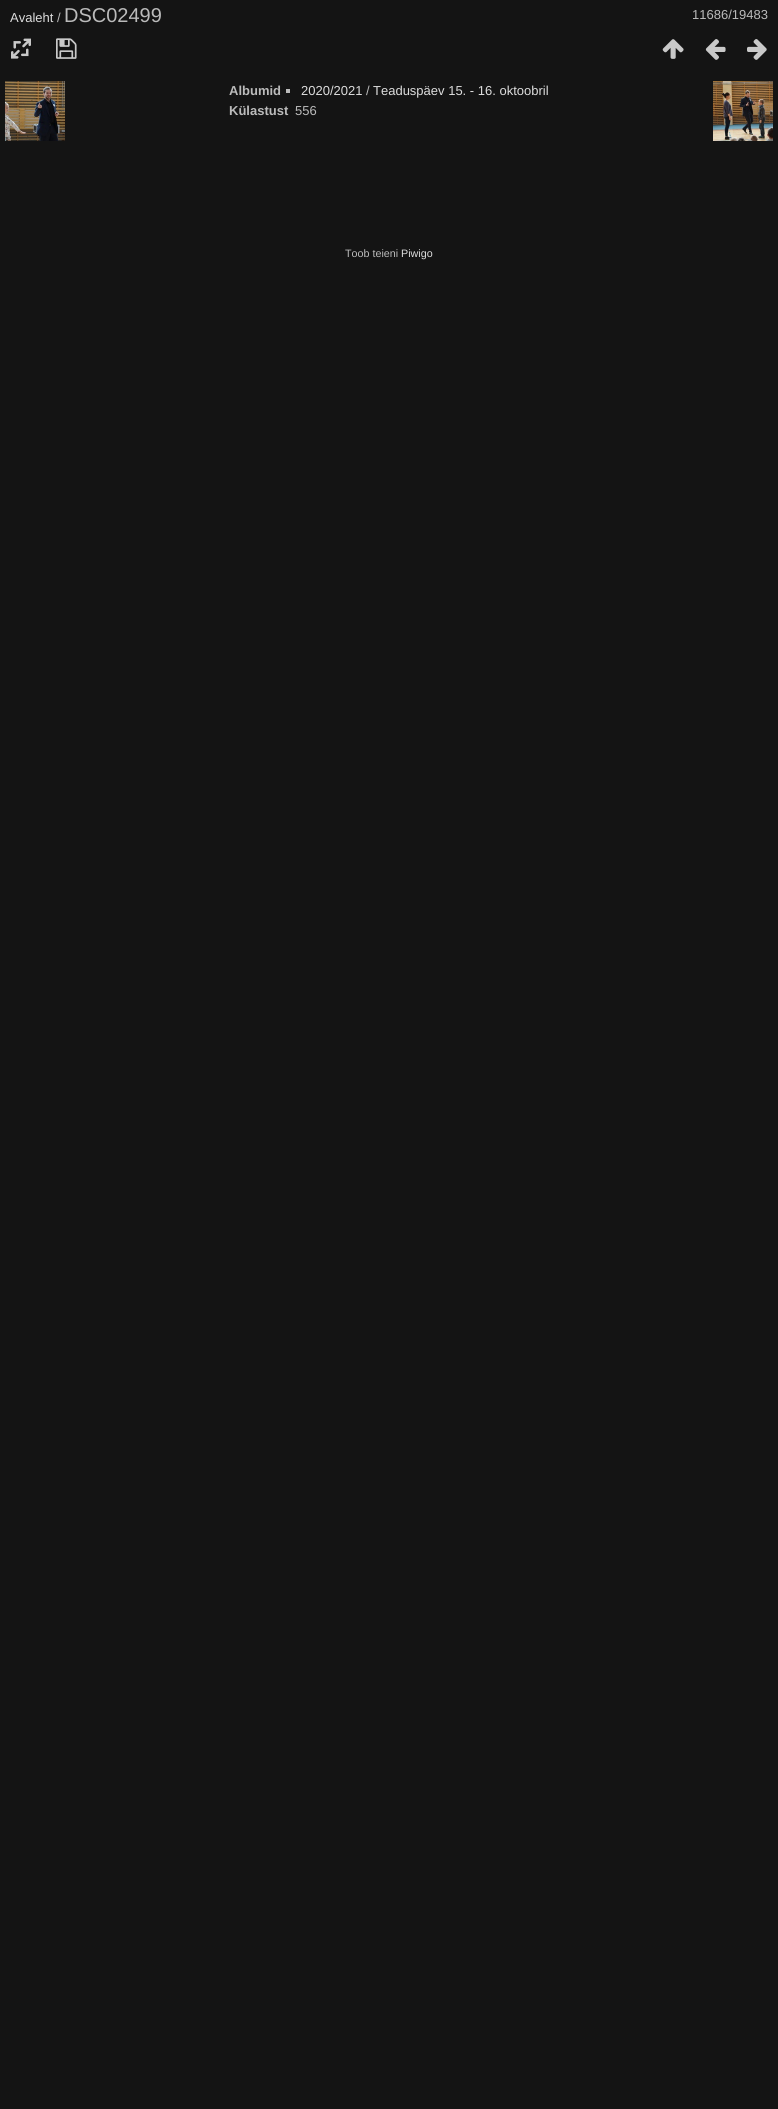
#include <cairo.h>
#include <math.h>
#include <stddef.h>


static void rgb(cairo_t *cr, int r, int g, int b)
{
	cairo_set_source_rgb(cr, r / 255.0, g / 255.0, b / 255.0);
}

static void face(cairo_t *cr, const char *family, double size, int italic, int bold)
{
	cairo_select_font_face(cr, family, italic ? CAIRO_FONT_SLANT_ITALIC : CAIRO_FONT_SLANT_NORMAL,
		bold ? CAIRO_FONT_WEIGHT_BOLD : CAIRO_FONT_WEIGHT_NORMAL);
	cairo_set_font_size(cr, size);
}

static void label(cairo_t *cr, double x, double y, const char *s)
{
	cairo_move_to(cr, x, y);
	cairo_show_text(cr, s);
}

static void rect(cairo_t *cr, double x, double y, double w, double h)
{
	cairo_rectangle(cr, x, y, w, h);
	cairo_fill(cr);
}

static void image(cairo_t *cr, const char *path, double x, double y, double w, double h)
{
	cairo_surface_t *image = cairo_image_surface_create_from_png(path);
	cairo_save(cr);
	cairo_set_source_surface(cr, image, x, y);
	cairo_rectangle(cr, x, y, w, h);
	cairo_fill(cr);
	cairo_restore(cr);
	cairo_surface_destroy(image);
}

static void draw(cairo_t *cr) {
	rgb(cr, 20, 20, 20);
	cairo_paint(cr);
	face(cr, "Liberation Sans", 13, 0, 0);
	rgb(cr, 221, 221, 221);
	label(cr, 10, 22, "Avaleht");
	rgb(cr, 187, 187, 187);
	label(cr, 57, 22, "/");
	face(cr, "Liberation Sans", 20, 0, 0);
	label(cr, 64, 22, "DSC02499");
	face(cr, "Liberation Sans", 13, 0, 0);
	label(cr, 692, 19, "11686/19483");
	image(cr, "image0.png", 11, 38, 20, 21);
	image(cr, "image1.png", 56, 38, 21, 21);
	image(cr, "image2.png", 662, 39, 22, 20);
	image(cr, "image3.png", 705, 39, 21, 21);
	image(cr, "image4.png", 747, 39, 20, 21);
	image(cr, "image5.png", 5, 81, 60, 60);
	image(cr, "image6.png", 713, 81, 60, 60);
	face(cr, "Liberation Sans", 13, 0, 1);
	label(cr, 229, 95, "Albumid");
	rect(cr, 286, 89, 4, 4);
	face(cr, "Liberation Sans", 13, 0, 0);
	rgb(cr, 221, 221, 221);
	label(cr, 301, 95, "2020/2021");
	rgb(cr, 187, 187, 187);
	label(cr, 366, 95, "/");
	rgb(cr, 221, 221, 221);
	label(cr, 373, 95, "Teaduspäev 15. - 16. oktoobril");
	face(cr, "Liberation Sans", 13, 0, 1);
	rgb(cr, 187, 187, 187);
	label(cr, 229, 115, "Külastust");
	face(cr, "Liberation Sans", 13, 0, 0);
	label(cr, 295, 115, "556");
	face(cr, "Liberation Sans", 10.75, 0, 0);
	label(cr, 345, 257, "Toob teieni");
	rgb(cr, 221, 221, 221);
	label(cr, 401, 257, "Piwigo");
}

int main(void) {
	cairo_surface_t *surface = cairo_image_surface_create(CAIRO_FORMAT_RGB24, 778, 2109);
	cairo_t *cr = cairo_create(surface);
	cairo_font_options_t *options = cairo_font_options_create();
	cairo_font_options_set_hint_metrics(options, CAIRO_HINT_METRICS_OFF);
	cairo_font_options_set_hint_style(options, CAIRO_HINT_STYLE_NONE);
	cairo_set_font_options(cr, options);
	cairo_set_miter_limit(cr, 4);
	draw(cr);
	cairo_surface_write_to_png(surface, "render.png");
	cairo_font_options_destroy(options);
	cairo_destroy(cr);
	cairo_surface_destroy(surface);
	return 0;
}
